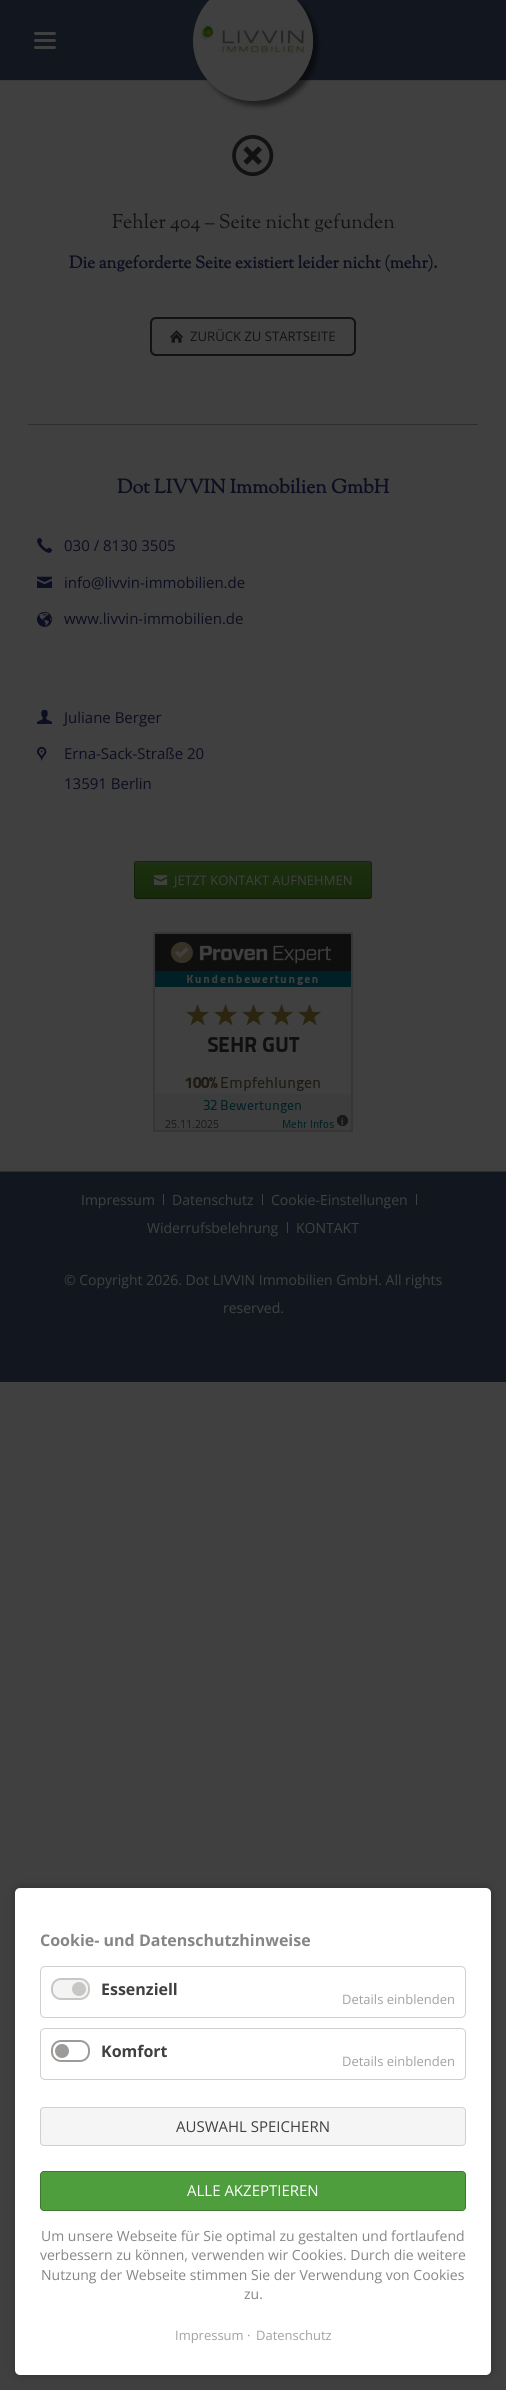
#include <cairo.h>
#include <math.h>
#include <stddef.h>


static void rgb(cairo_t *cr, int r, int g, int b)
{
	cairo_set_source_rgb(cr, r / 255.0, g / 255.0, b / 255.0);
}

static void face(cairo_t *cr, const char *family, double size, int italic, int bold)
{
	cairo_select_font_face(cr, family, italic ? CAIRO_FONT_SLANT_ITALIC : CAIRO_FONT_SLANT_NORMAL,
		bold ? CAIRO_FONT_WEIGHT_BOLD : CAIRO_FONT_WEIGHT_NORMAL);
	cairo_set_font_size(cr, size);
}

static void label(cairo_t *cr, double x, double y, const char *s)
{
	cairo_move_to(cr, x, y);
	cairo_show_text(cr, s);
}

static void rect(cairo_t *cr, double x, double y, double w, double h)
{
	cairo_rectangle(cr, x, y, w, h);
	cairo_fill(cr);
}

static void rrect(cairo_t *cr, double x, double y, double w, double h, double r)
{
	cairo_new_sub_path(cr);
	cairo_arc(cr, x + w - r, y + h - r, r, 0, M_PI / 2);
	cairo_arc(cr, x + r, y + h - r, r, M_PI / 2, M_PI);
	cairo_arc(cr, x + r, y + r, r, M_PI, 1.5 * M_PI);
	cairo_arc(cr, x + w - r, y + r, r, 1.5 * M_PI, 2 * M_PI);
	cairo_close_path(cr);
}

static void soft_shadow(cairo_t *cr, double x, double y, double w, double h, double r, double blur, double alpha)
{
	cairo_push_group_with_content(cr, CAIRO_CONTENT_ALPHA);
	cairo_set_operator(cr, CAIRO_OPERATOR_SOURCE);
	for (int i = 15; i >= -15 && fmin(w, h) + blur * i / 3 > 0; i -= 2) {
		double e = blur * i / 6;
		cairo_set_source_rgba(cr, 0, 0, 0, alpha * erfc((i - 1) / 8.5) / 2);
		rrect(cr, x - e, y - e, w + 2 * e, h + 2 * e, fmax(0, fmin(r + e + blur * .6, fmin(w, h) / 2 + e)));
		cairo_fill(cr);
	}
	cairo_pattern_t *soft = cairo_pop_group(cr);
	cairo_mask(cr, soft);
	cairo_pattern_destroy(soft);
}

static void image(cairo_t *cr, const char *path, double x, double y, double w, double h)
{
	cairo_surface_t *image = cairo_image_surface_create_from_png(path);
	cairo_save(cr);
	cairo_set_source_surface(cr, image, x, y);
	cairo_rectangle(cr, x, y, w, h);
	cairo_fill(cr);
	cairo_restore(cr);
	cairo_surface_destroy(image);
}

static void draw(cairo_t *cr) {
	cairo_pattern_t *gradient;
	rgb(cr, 64, 64, 64);
	cairo_paint(cr);
	rgb(cr, 18, 23, 31);
	rect(cr, 0, 0, 506, 80);
	rgb(cr, 57, 58, 60);
	rect(cr, 0, 80, 506, 1);
	rgb(cr, 0, 0, 0);
	soft_shadow(cr, 198, -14, 120, 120, 60, 2.5, 0.5);
	rgb(cr, 64, 64, 64);
	cairo_arc(cr, 253, 41, 60, 0, 2 * M_PI);
	cairo_fill(cr);
	image(cr, "image0.png", 198, 21, 115, 39);
	rrect(cr, 34, 46, 22, 3, 1.5);
	cairo_fill(cr);
	rrect(cr, 34, 39, 22, 3, 1.5);
	cairo_fill(cr);
	rrect(cr, 34, 32, 22, 3, 1.5);
	cairo_fill(cr);
	image(cr, "image1.png", 232, 135, 42, 42);
	face(cr, "Sorts Mill Goudy", 19.75, 0, 0);
	rgb(cr, 18, 18, 19);
	label(cr, 112, 228, "Fehler 404 – Seite nicht gefunden");
	face(cr, "Sorts Mill Goudy", 16.9, 0, 1);
	rgb(cr, 12, 14, 33);
	label(cr, 69, 268, "Die angeforderte Seite existiert leider nicht (mehr).");
	rrect(cr, 151, 318, 204, 37, 5);
	rgb(cr, 18, 18, 19);
	cairo_stroke(cr);
	image(cr, "image2.png", 170, 330, 13, 13);
	face(cr, "Open Sans", 13.1, 0, 0);
	label(cr, 190, 341, "ZURÜCK ZU STARTSEITE");
	rgb(cr, 45, 46, 49);
	rect(cr, 28, 424, 450, 1);
	face(cr, "Sorts Mill Goudy", 19.5, 0, 1);
	rgb(cr, 12, 14, 33);
	label(cr, 117, 493, "Dot LIVVIN Immobilien GmbH");
	image(cr, "image3.png", 37, 537, 16, 16);
	face(cr, "Open Sans", 15, 0, 0);
	label(cr, 64, 551, "030 / 8130 3505");
	image(cr, "image4.png", 37, 576, 15, 12);
	label(cr, 64, 588, "info@livvin-immobilien.de");
	image(cr, "image5.png", 37, 611, 15, 16);
	label(cr, 64, 624, "www.livvin-immobilien.de");
	image(cr, "image6.png", 37, 709, 15, 15);
	label(cr, 64, 723, "Juliane Berger");
	image(cr, "image7.png", 37, 746, 10, 16);
	label(cr, 64, 759, "Erna-Sack-Straße 20");
	label(cr, 64, 789, "13591 Berlin");
	cairo_save(cr);
	rrect(cr, 134, 861, 238, 38, 3);
	cairo_clip(cr);
	gradient = cairo_pattern_create_linear(253, 862, 253, 898);
	cairo_pattern_add_color_stop_rgba(gradient, 0, 0.106, 0.188, 0.055, 1);
	cairo_pattern_add_color_stop_rgba(gradient, 1, 0.09, 0.157, 0.043, 1);
	cairo_set_source(cr, gradient);
	cairo_pattern_destroy(gradient);
	rect(cr, 134, 862, 238, 36);
	cairo_restore(cr);
	rgb(cr, 36, 49, 28);
	cairo_new_path(cr);
	cairo_move_to(cr, 137, 863);
	cairo_line_to(cr, 369, 863);
	cairo_curve_to(cr, 370, 863, 371, 864, 371, 865);
	cairo_curve_to(cr, 371, 864, 371, 862, 369, 862);
	cairo_line_to(cr, 137, 862);
	cairo_line_to(cr, 135, 863);
	cairo_line_to(cr, 135, 865);
	cairo_curve_to(cr, 135, 864, 136, 863, 137, 863);
	cairo_close_path(cr);
	cairo_fill(cr);
	cairo_new_path(cr);
	cairo_move_to(cr, 135, 862);
	cairo_line_to(cr, 137, 861.5);
	cairo_line_to(cr, 369, 861.5);
	cairo_line_to(cr, 371, 862);
	rgb(cr, 22, 38, 11);
	cairo_set_line_width(cr, 1);
	cairo_stroke(cr);
	cairo_new_path(cr);
	cairo_move_to(cr, 371, 862);
	cairo_curve_to(cr, 371, 862.5, 371.5, 863.5, 371.5, 864);
	cairo_line_to(cr, 371.5, 896);
	cairo_curve_to(cr, 371.5, 896.5, 371, 897.5, 371, 898);
	rgb(cr, 19, 33, 9);
	cairo_stroke(cr);
	cairo_new_path(cr);
	cairo_move_to(cr, 371, 898);
	cairo_line_to(cr, 369, 898.5);
	cairo_line_to(cr, 137, 898.5);
	cairo_line_to(cr, 135, 898);
	rgb(cr, 16, 28, 8);
	cairo_stroke(cr);
	cairo_new_path(cr);
	cairo_move_to(cr, 135, 898);
	cairo_curve_to(cr, 135, 897.5, 134.5, 896.5, 134.5, 896);
	cairo_line_to(cr, 134.5, 864);
	cairo_curve_to(cr, 134.5, 863.5, 135, 862.5, 135, 862);
	rgb(cr, 19, 33, 9);
	cairo_stroke(cr);
	image(cr, "image8.png", 154, 875, 14, 10);
	face(cr, "Open Sans", 13.1, 0, 0);
	rgb(cr, 64, 64, 64);
	label(cr, 174, 885, "JETZT KONTAKT AUFNEHMEN");
	image(cr, "image9.png", 153, 932, 200, 200);
	rgb(cr, 18, 23, 31);
	rect(cr, 0, 1172, 506, 210);
	rgb(cr, 45, 46, 49);
	rect(cr, 0, 1171, 506, 1);
	face(cr, "Open Sans", 14, 0, 0);
	rgb(cr, 64, 64, 64);
	label(cr, 81, 1205, "Impressum");
	rect(cr, 163, 1194, 1, 11);
	label(cr, 172, 1205, "Datenschutz");
	rect(cr, 262, 1194, 1, 11);
	label(cr, 271, 1205, "Cookie-Einstellungen");
	rect(cr, 416, 1194, 1, 11);
	label(cr, 147, 1233, "Widerrufsbelehrung");
	rect(cr, 287, 1222, 1, 11);
	label(cr, 296, 1233, "KONTAKT");
	label(cr, 64, 1285, "© Copyright 2026. Dot LIVVIN Immobilien GmbH. All rights");
	label(cr, 223, 1313, "reserved.");
	rgb(cr, 0, 0, 0);
	soft_shadow(cr, 15, 1888, 476, 487, 5, 5, 0.25);
	rgb(cr, 255, 255, 255);
	rrect(cr, 15, 1888, 476, 487, 5);
	cairo_fill(cr);
	face(cr, "Open Sans", 16, 0, 1);
	rgb(cr, 134, 134, 134);
	label(cr, 40, 1946, "Cookie- und Datenschutzhinweise");
	rrect(cr, 40.5, 1966.5, 425, 51, 4.5);
	rgb(cr, 208, 208, 208);
	cairo_stroke(cr);
	rgb(cr, 244, 244, 244);
	rrect(cr, 52, 1979, 37, 20, 9);
	cairo_fill_preserve(cr);
	rgb(cr, 200, 199, 197);
	cairo_set_line_width(cr, 2);
	cairo_stroke(cr);
	cairo_arc(cr, 79, 1989, 7, 0, 2 * M_PI);
	cairo_fill(cr);
	rgb(cr, 64, 64, 64);
	label(cr, 101, 1995, "Essenziell");
	face(cr, "Open Sans", 13, 0, 0);
	rgb(cr, 162, 162, 162);
	label(cr, 342, 2004, "Details einblenden");
	rrect(cr, 40.5, 2028.5, 425, 51, 4.5);
	rgb(cr, 208, 208, 208);
	cairo_set_line_width(cr, 1);
	cairo_stroke(cr);
	rrect(cr, 52, 2041, 37, 20, 9);
	rgb(cr, 156, 155, 153);
	cairo_set_line_width(cr, 2);
	cairo_stroke(cr);
	cairo_arc(cr, 62, 2051, 7, 0, 2 * M_PI);
	cairo_fill(cr);
	face(cr, "Open Sans", 16, 0, 1);
	rgb(cr, 64, 64, 64);
	label(cr, 101, 2057, "Komfort");
	face(cr, "Open Sans", 13, 0, 0);
	rgb(cr, 162, 162, 162);
	label(cr, 342, 2066, "Details einblenden");
	rgb(cr, 245, 245, 245);
	rrect(cr, 40.5, 2107.5, 425, 38, 3.5);
	cairo_fill_preserve(cr);
	rgb(cr, 207, 207, 207);
	cairo_set_line_width(cr, 1);
	cairo_stroke(cr);
	face(cr, "Open Sans", 15, 0, 0);
	rgb(cr, 64, 64, 64);
	label(cr, 176, 2132, "AUSWAHL SPEICHERN");
	rgb(cr, 78, 158, 62);
	rrect(cr, 40.5, 2171.5, 425, 39, 3.5);
	cairo_fill_preserve(cr);
	rgb(cr, 62, 120, 48);
	cairo_stroke(cr);
	rgb(cr, 255, 255, 255);
	label(cr, 187, 2196, "ALLE AKZEPTIEREN");
	face(cr, "Open Sans", 14, 0, 0);
	rgb(cr, 134, 134, 134);
	label(cr, 41, 2241, "Um unsere Webseite für Sie optimal zu gestalten und fortlaufend");
	label(cr, 40, 2260, "verbessern zu können, verwenden wir Cookies. Durch die weitere");
	label(cr, 41, 2280, "Nutzung der Webseite stimmen Sie der Verwendung von Cookies");
	label(cr, 244, 2299, "zu.");
	face(cr, "Open Sans", 13, 0, 0);
	rgb(cr, 162, 162, 162);
	label(cr, 175, 2340, "Impressum");
	label(cr, 247, 2340, "·");
	label(cr, 256, 2340, "Datenschutz");
}

int main(void) {
	cairo_surface_t *surface = cairo_image_surface_create(CAIRO_FORMAT_RGB24, 506, 2390);
	cairo_t *cr = cairo_create(surface);
	cairo_font_options_t *options = cairo_font_options_create();
	cairo_font_options_set_hint_metrics(options, CAIRO_HINT_METRICS_OFF);
	cairo_font_options_set_hint_style(options, CAIRO_HINT_STYLE_NONE);
	cairo_set_font_options(cr, options);
	cairo_set_miter_limit(cr, 4);
	draw(cr);
	cairo_surface_write_to_png(surface, "render.png");
	cairo_font_options_destroy(options);
	cairo_destroy(cr);
	cairo_surface_destroy(surface);
	return 0;
}
